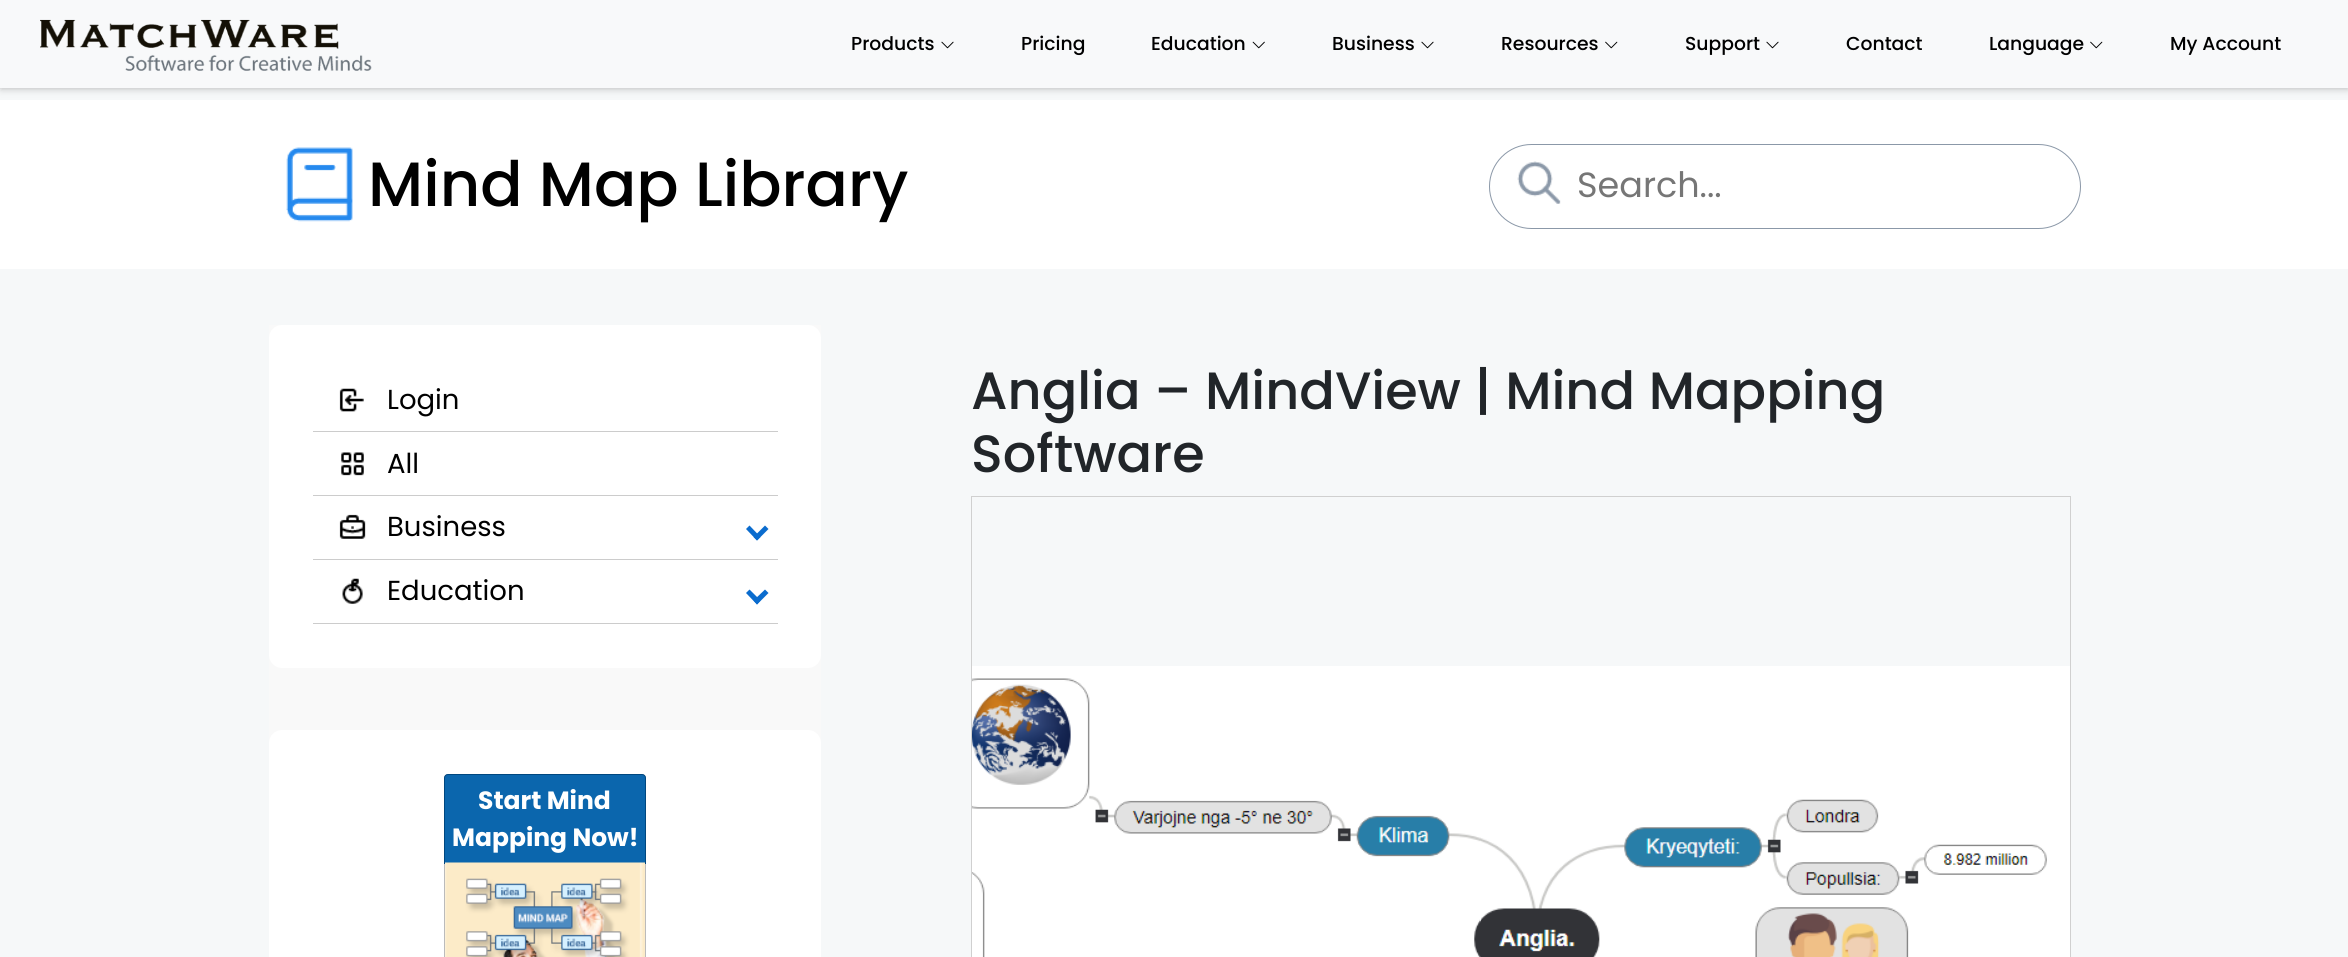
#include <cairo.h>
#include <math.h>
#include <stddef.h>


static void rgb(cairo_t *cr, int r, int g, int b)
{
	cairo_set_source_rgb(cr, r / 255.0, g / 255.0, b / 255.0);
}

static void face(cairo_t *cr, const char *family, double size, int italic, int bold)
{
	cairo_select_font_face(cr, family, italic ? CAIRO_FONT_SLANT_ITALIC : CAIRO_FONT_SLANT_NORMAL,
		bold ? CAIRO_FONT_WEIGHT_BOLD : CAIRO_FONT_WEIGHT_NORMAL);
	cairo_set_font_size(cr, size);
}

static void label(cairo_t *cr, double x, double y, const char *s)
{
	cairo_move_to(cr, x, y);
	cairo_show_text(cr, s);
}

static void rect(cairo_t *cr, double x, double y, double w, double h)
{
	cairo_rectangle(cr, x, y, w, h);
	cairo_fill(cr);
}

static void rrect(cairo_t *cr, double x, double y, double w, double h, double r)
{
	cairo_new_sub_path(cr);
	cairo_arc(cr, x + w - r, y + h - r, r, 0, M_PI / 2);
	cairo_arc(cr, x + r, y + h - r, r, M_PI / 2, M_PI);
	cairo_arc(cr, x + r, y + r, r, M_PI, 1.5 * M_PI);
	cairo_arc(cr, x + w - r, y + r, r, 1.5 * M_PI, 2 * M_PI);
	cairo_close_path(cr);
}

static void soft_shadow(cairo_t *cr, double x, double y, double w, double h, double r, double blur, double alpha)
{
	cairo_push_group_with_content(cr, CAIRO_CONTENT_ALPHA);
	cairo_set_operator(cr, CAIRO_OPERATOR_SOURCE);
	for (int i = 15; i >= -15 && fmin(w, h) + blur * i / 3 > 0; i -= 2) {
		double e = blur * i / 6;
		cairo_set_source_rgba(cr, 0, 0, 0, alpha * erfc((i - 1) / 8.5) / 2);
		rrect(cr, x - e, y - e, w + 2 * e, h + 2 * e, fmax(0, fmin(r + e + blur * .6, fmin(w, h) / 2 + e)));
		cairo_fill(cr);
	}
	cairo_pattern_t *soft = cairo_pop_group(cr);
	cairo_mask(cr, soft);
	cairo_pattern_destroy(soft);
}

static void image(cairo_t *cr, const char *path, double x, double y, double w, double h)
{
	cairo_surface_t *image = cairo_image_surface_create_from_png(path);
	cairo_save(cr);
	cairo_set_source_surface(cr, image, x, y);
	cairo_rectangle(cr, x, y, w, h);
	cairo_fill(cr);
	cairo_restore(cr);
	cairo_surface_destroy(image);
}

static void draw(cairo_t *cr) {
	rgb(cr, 246, 248, 249);
	cairo_paint(cr);
	rgb(cr, 255, 255, 255);
	rect(cr, 0, 100, 2348, 169);
	rgb(cr, 175, 175, 175);
	soft_shadow(cr, 1, 3, 2347, 85, 0, 4, 1);
	rgb(cr, 248, 249, 250);
	rect(cr, 0, 0, 2348, 88);
	image(cr, "image0.png", 40, 19, 332, 52);
	face(cr, "Poppins Medium", 18.75, 0, 0);
	rgb(cr, 0, 0, 0);
	label(cr, 851, 50, "Products");
	image(cr, "image1.png", 941, 41, 13, 8);
	label(cr, 1021, 50, "Pricing");
	label(cr, 1151, 50, "Education");
	image(cr, "image2.png", 1252, 41, 13, 8);
	label(cr, 1332, 50, "Business");
	image(cr, "image1.png", 1421, 41, 13, 8);
	label(cr, 1501, 50, "Resources");
	image(cr, "image3.png", 1605, 41, 13, 8);
	label(cr, 1685, 50, "Support");
	image(cr, "image1.png", 1766, 41, 13, 8);
	label(cr, 1846, 50, "Contact");
	label(cr, 1989, 50, "Language");
	image(cr, "image3.png", 2090, 41, 13, 8);
	label(cr, 2170, 50, "My Account");
	image(cr, "image4.png", 286, 147, 67, 75);
	face(cr, "Poppins Medium", 62.5, 0, 0);
	label(cr, 368, 206, "Mind Map Library");
	rrect(cr, 1489.5, 144.5, 591, 84, 42);
	rgb(cr, 139, 152, 168);
	cairo_set_line_width(cr, 1);
	cairo_stroke(cr);
	image(cr, "image5.png", 1517, 161, 44, 43);
	face(cr, "Poppins", 35, 0, 0);
	rgb(cr, 118, 118, 118);
	label(cr, 1577, 197, "Search...");
	rgb(cr, 249, 249, 249);
	rect(cr, 269, 325, 552, 418);
	rgb(cr, 255, 255, 255);
	rrect(cr, 269, 325, 552, 343, 13);
	cairo_fill(cr);
	rgb(cr, 204, 204, 204);
	rect(cr, 313, 431, 465, 1);
	image(cr, "image6.png", 339, 388, 25, 24);
	face(cr, "Poppins", 27.5, 0, 0);
	rgb(cr, 0, 0, 0);
	label(cr, 387, 409, "Login");
	rgb(cr, 204, 204, 204);
	rect(cr, 313, 495, 465, 1);
	image(cr, "image7.png", 341, 452, 23, 24);
	rgb(cr, 0, 0, 0);
	label(cr, 387, 473, "All");
	rgb(cr, 204, 204, 204);
	rect(cr, 313, 559, 465, 1);
	image(cr, "image8.png", 339, 514, 27, 25);
	rgb(cr, 0, 0, 0);
	label(cr, 387, 536, "Business");
	rgb(cr, 11, 108, 206);
	cairo_new_path(cr);
	cairo_move_to(cr, 765, 525.5);
	cairo_line_to(cr, 768.5, 529);
	cairo_line_to(cr, 757, 540.5);
	cairo_line_to(cr, 753.5, 537);
	cairo_close_path(cr);
	cairo_fill(cr);
	cairo_new_path(cr);
	cairo_move_to(cr, 749.5, 525.5);
	cairo_line_to(cr, 760.5, 537);
	cairo_line_to(cr, 757, 540.5);
	cairo_line_to(cr, 746, 529);
	cairo_close_path(cr);
	cairo_fill(cr);
	rgb(cr, 204, 204, 204);
	rect(cr, 313, 623, 465, 1);
	image(cr, "image9.png", 342, 578, 21, 26);
	rgb(cr, 0, 0, 0);
	label(cr, 387, 600, "Education");
	rgb(cr, 11, 108, 206);
	cairo_new_path(cr);
	cairo_move_to(cr, 765, 589.5);
	cairo_line_to(cr, 768.5, 593);
	cairo_line_to(cr, 757, 604.5);
	cairo_line_to(cr, 753.5, 600.5);
	cairo_close_path(cr);
	cairo_fill(cr);
	cairo_new_path(cr);
	cairo_move_to(cr, 749.5, 589.5);
	cairo_line_to(cr, 760.5, 600.5);
	cairo_line_to(cr, 757, 604.5);
	cairo_line_to(cr, 746, 593);
	cairo_close_path(cr);
	cairo_fill(cr);
	rgb(cr, 255, 255, 255);
	rrect(cr, 269, 730, 552, 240, 13);
	cairo_fill(cr);
	rrect(cr, 444.5, 774.5, 201, 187, 3.5);
	rgb(cr, 187, 187, 187);
	cairo_stroke(cr);
	rgb(cr, 11, 102, 173);
	cairo_new_path(cr);
	cairo_move_to(cr, 448, 774.5);
	cairo_line_to(cr, 642, 774.5);
	cairo_curve_to(cr, 644, 774.5, 645.5, 776, 645.5, 778);
	cairo_line_to(cr, 645.5, 863.5);
	cairo_line_to(cr, 444.5, 863.5);
	cairo_line_to(cr, 444.5, 778);
	cairo_curve_to(cr, 444.5, 776, 446, 774.5, 448, 774.5);
	cairo_close_path(cr);
	cairo_fill_preserve(cr);
	rgb(cr, 0, 71, 127);
	cairo_stroke(cr);
	face(cr, "Poppins", 25, 0, 1);
	rgb(cr, 255, 255, 255);
	label(cr, 478, 809, "Start Mind");
	label(cr, 452, 846, "Mapping Now!");
	image(cr, "image10.png", 445, 862, 200, 95);
	face(cr, "Poppins Medium", 52.5, 0, 0);
	rgb(cr, 33, 37, 41);
	label(cr, 971, 409, "Anglia – MindView | Mind Mapping");
	label(cr, 971, 472, "Software");
	cairo_rectangle(cr, 971.5, 496.5, 1099, 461);
	rgb(cr, 208, 208, 208);
	cairo_stroke(cr);
	image(cr, "image11.png", 972, 666, 1098, 291);
}

int main(void) {
	cairo_surface_t *surface = cairo_image_surface_create(CAIRO_FORMAT_RGB24, 2348, 957);
	cairo_t *cr = cairo_create(surface);
	cairo_font_options_t *options = cairo_font_options_create();
	cairo_font_options_set_hint_metrics(options, CAIRO_HINT_METRICS_OFF);
	cairo_font_options_set_hint_style(options, CAIRO_HINT_STYLE_NONE);
	cairo_set_font_options(cr, options);
	cairo_set_miter_limit(cr, 4);
	draw(cr);
	cairo_surface_write_to_png(surface, "render.png");
	cairo_font_options_destroy(options);
	cairo_destroy(cr);
	cairo_surface_destroy(surface);
	return 0;
}
